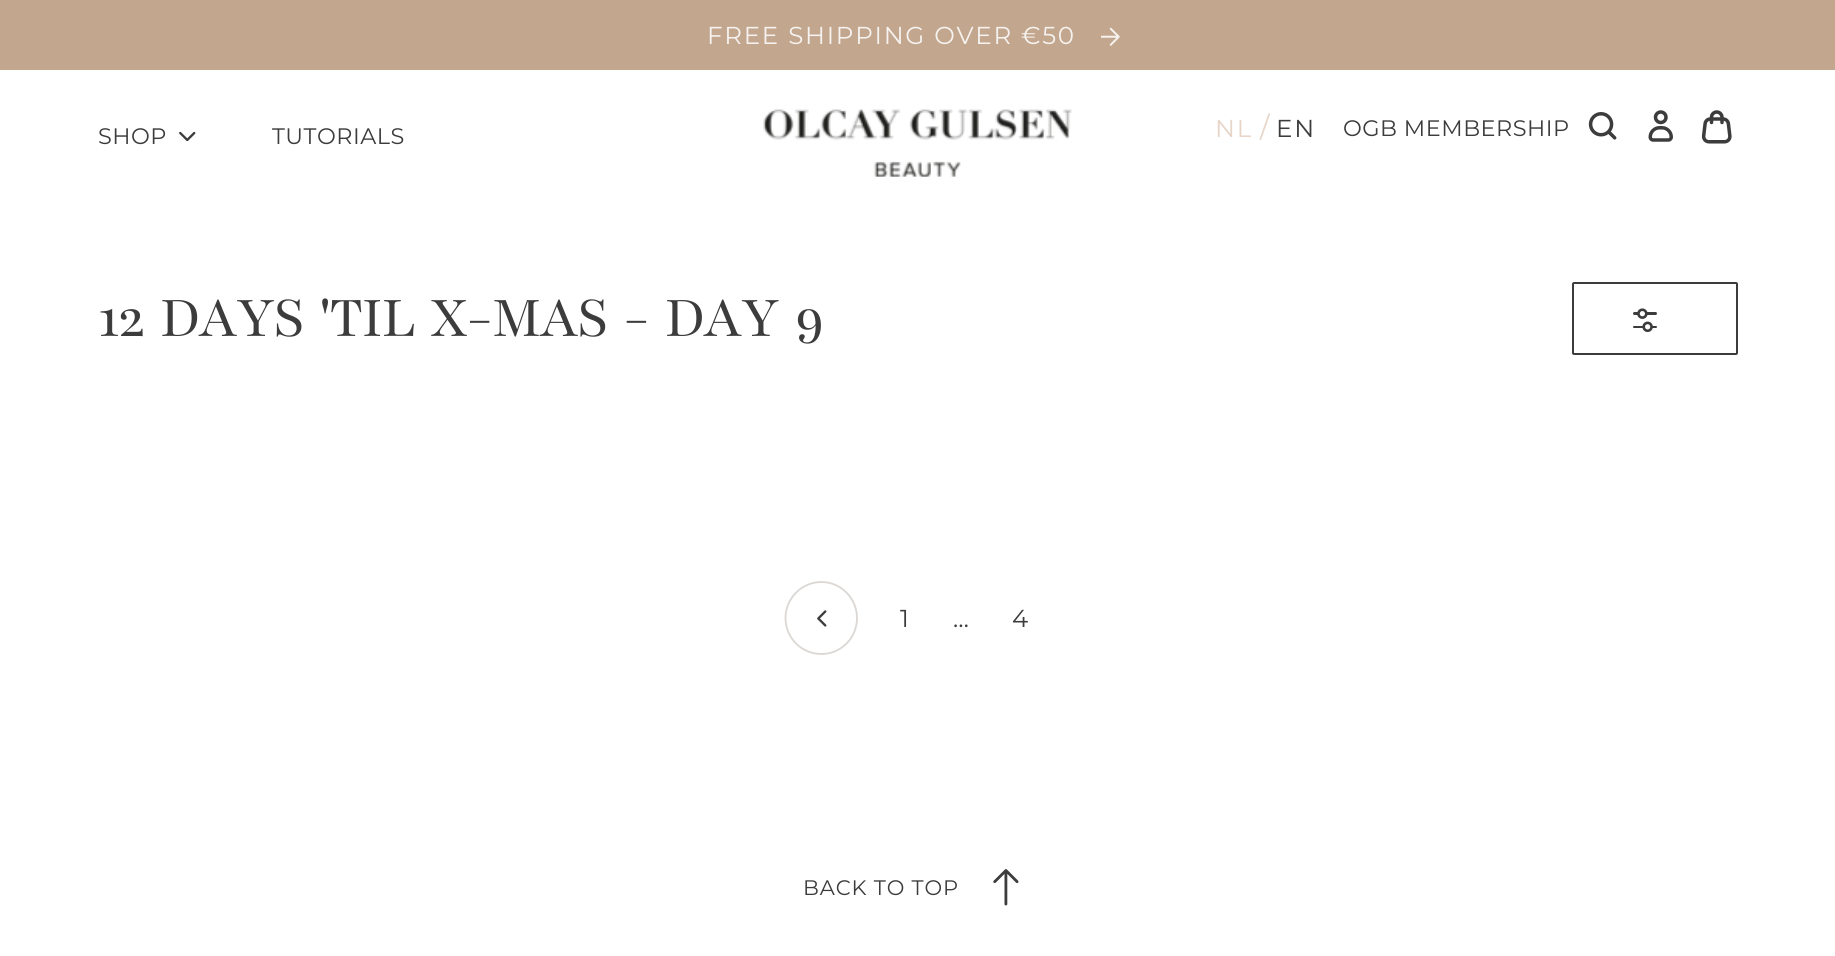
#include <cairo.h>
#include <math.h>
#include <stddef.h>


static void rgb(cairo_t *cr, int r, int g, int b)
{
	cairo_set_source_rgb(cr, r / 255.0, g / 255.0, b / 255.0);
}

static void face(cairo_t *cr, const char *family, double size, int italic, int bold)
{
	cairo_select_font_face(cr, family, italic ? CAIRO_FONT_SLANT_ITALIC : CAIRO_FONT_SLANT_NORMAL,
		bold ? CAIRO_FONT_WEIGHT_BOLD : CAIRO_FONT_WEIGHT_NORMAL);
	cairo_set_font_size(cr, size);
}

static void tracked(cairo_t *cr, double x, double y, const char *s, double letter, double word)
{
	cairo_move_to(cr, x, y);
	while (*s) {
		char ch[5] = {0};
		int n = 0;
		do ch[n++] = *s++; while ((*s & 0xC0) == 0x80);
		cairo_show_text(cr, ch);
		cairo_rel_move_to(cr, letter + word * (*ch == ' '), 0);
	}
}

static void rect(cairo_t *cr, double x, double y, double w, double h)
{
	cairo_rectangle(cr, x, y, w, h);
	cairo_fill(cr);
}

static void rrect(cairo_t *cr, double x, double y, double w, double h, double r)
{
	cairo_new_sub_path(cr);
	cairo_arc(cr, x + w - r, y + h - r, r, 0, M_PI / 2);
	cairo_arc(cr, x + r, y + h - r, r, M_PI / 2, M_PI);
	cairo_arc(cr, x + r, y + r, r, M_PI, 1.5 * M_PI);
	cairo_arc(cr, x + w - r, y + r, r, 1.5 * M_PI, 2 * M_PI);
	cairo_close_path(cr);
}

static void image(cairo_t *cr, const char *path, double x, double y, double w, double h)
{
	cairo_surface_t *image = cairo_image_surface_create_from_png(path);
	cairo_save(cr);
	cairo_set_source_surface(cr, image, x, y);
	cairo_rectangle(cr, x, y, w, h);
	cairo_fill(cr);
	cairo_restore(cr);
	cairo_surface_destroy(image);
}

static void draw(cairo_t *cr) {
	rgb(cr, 255, 255, 255);
	cairo_paint(cr);
	rgb(cr, 194, 166, 142);
	rect(cr, 0, 0, 1835, 70);
	face(cr, "Montserrat", 24.5, 0, 0);
	rgb(cr, 246, 242, 239);
	tracked(cr, 707, 44, "FREE SHIPPING OVER €50", 1.75, 0);
	image(cr, "image0.png", 1101, 27, 19, 19);
	face(cr, "Montserrat", 22.4, 0, 0);
	rgb(cr, 60, 60, 60);
	tracked(cr, 98, 144, "SHOP", 0.5, 0);
	image(cr, "image1.png", 179, 131, 17, 11);
	tracked(cr, 272, 144, "TUTORIALS", 0.5, 0);
	image(cr, "image2.png", 763, 109, 309, 68);
	face(cr, "Montserrat", 24.5, 0, 0);
	rgb(cr, 230, 213, 200);
	tracked(cr, 1215, 137, "NL", 1.75, 0);
	face(cr, "Montserrat", 28, 0, 0);
	tracked(cr, 1260, 137, "/", 0.5, 0);
	face(cr, "Montserrat", 24.5, 0, 0);
	rgb(cr, 60, 60, 60);
	tracked(cr, 1276, 137, "EN", 1.75, 0);
	face(cr, "Montserrat", 22.4, 0, 0);
	tracked(cr, 1343, 136, "OGB MEMBERSHIP", 0.5, 0);
	image(cr, "image3.png", 1588, 112, 29, 28);
	image(cr, "image4.png", 1648, 110, 25, 32);
	image(cr, "image5.png", 1701, 110, 31, 34);
	face(cr, "Playfair", 63, 0, 0);
	tracked(cr, 98, 336, "12 DAYS 'TIL X-MAS - DAY 9", -1.25, 4);
	rrect(cr, 1573, 283, 164, 71, 1);
	cairo_stroke(cr);
	image(cr, "image6.png", 1633, 308, 24, 25);
	cairo_new_path(cr);
	cairo_move_to(cr, 821.5, 654);
	cairo_curve_to(cr, 801.5, 654, 785.5, 638, 785.5, 618);
	cairo_curve_to(cr, 785.5, 598.5, 801.5, 582, 821.5, 582);
	cairo_curve_to(cr, 841, 582, 857, 598.5, 857, 618);
	cairo_curve_to(cr, 857, 638, 841, 654, 821.5, 654);
	cairo_close_path(cr);
	rgb(cr, 218, 215, 212);
	cairo_set_line_width(cr, 1.8);
	cairo_stroke(cr);
	image(cr, "image7.png", 817, 610, 10, 17);
	face(cr, "Montserrat", 24.5, 0, 0);
	rgb(cr, 60, 60, 60);
	tracked(cr, 900, 627, "1", 1.75, 0);
	tracked(cr, 953, 627, "…", 1.75, 0);
	tracked(cr, 1012, 627, "4", 1.75, 0);
	face(cr, "Montserrat", 21, 0, 0);
	tracked(cr, 803, 895, "BACK TO TOP", 0.9, 0);
	image(cr, "image8.png", 993, 869, 26, 37);
}

int main(void) {
	cairo_surface_t *surface = cairo_image_surface_create(CAIRO_FORMAT_RGB24, 1835, 956);
	cairo_t *cr = cairo_create(surface);
	cairo_font_options_t *options = cairo_font_options_create();
	cairo_font_options_set_hint_metrics(options, CAIRO_HINT_METRICS_OFF);
	cairo_font_options_set_hint_style(options, CAIRO_HINT_STYLE_NONE);
	cairo_set_font_options(cr, options);
	cairo_set_miter_limit(cr, 4);
	draw(cr);
	cairo_surface_write_to_png(surface, "render.png");
	cairo_font_options_destroy(options);
	cairo_destroy(cr);
	cairo_surface_destroy(surface);
	return 0;
}
